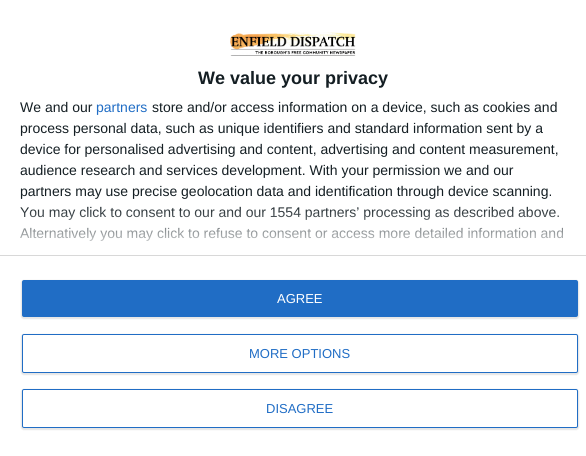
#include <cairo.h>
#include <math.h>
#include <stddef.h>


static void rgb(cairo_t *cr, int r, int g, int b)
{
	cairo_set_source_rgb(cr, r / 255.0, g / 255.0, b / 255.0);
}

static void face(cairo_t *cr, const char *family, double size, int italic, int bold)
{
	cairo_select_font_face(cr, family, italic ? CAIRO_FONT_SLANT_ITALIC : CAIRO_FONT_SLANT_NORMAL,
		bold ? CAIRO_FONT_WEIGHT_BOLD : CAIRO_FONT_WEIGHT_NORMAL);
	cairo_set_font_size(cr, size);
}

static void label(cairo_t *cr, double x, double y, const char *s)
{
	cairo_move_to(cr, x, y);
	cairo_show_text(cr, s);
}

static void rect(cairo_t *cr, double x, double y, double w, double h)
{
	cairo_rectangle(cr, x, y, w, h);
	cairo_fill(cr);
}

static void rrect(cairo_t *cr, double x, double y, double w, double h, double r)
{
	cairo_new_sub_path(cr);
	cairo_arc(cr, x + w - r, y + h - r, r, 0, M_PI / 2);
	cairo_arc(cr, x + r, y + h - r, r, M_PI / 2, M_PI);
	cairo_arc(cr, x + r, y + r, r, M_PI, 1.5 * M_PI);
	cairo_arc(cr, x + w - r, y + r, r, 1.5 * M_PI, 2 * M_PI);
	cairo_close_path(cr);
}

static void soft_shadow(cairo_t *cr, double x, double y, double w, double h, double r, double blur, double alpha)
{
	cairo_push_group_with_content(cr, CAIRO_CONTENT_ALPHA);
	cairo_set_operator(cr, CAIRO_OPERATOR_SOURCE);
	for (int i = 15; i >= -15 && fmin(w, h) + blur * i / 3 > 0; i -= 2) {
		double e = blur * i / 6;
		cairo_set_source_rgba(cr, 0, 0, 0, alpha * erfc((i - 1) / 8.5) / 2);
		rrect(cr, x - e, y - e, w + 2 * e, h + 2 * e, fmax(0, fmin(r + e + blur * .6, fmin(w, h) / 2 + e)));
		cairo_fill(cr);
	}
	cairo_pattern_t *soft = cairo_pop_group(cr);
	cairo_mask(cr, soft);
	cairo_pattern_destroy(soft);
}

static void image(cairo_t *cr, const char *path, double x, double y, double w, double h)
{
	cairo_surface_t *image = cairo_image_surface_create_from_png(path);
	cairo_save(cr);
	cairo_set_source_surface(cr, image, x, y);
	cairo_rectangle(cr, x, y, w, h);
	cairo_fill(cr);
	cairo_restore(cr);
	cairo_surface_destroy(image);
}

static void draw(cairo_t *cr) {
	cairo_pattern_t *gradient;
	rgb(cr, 255, 255, 255);
	cairo_paint(cr);
	image(cr, "image0.png", 230, 32, 126, 24);
	face(cr, "Liberation Sans", 18, 0, 1);
	rgb(cr, 20, 30, 35);
	label(cr, 198, 84, "We value your privacy");
	face(cr, "Liberation Sans", 14, 0, 0);
	label(cr, 20, 112, "We and our");
	rgb(cr, 32, 109, 197);
	label(cr, 96, 112, "partners");
	rgb(cr, 20, 30, 35);
	label(cr, 152, 112, "store and/or access information on a device, such as cookies and");
	label(cr, 20, 133, "process personal data, such as unique identifiers and standard information sent by a");
	label(cr, 20, 154, "device for personalised advertising and content, advertising and content measurement,");
	label(cr, 20, 175, "audience research and services development. With your permission we and our");
	label(cr, 20, 196, "partners may use precise geolocation data and identification through device scanning.");
	label(cr, 20, 217, "You may click to consent to our and our 1554 partners’ processing as described above.");
	label(cr, 20, 238, "Alternatively you may click to refuse to consent or access more detailed information and");
	rgb(cr, 216, 216, 216);
	rect(cr, 0, 255, 586, 1);
	gradient = cairo_pattern_create_linear(293, 255, 293, 205);
	cairo_pattern_add_color_stop_rgba(gradient, 0, 1, 1, 1, 1);
	cairo_pattern_add_color_stop_rgba(gradient, 1, 1, 1, 1, 0);
	cairo_set_source(cr, gradient);
	cairo_pattern_destroy(gradient);
	rect(cr, 20, 207, 543, 34);
	rgb(cr, 0, 0, 0);
	soft_shadow(cr, 21, 280, 558, 39, 3, 0.5, 0.1);
	rgb(cr, 32, 109, 197);
	rrect(cr, 22, 280, 556, 37, 2);
	cairo_fill(cr);
	face(cr, "Liberation Sans", 13, 0, 0);
	rgb(cr, 255, 255, 255);
	label(cr, 277, 303, "AGREE");
	rgb(cr, 0, 0, 0);
	soft_shadow(cr, 21, 334, 558, 41, 3, 0.5, 0.1);
	rgb(cr, 255, 255, 255);
	rrect(cr, 22.5, 334.5, 555, 38, 1.5);
	cairo_fill_preserve(cr);
	rgb(cr, 32, 109, 197);
	cairo_set_line_width(cr, 1);
	cairo_stroke(cr);
	label(cr, 249, 358, "MORE OPTIONS");
	rgb(cr, 0, 0, 0);
	soft_shadow(cr, 21, 389, 558, 41, 3, 0.5, 0.1);
	rgb(cr, 255, 255, 255);
	rrect(cr, 22.5, 389.5, 555, 38, 1.5);
	cairo_fill_preserve(cr);
	rgb(cr, 32, 109, 197);
	cairo_stroke(cr);
	label(cr, 266, 413, "DISAGREE");
}

int main(void) {
	cairo_surface_t *surface = cairo_image_surface_create(CAIRO_FORMAT_RGB24, 586, 456);
	cairo_t *cr = cairo_create(surface);
	cairo_font_options_t *options = cairo_font_options_create();
	cairo_font_options_set_hint_metrics(options, CAIRO_HINT_METRICS_OFF);
	cairo_font_options_set_hint_style(options, CAIRO_HINT_STYLE_NONE);
	cairo_set_font_options(cr, options);
	cairo_set_miter_limit(cr, 4);
	draw(cr);
	cairo_surface_write_to_png(surface, "render.png");
	cairo_font_options_destroy(options);
	cairo_destroy(cr);
	cairo_surface_destroy(surface);
	return 0;
}
